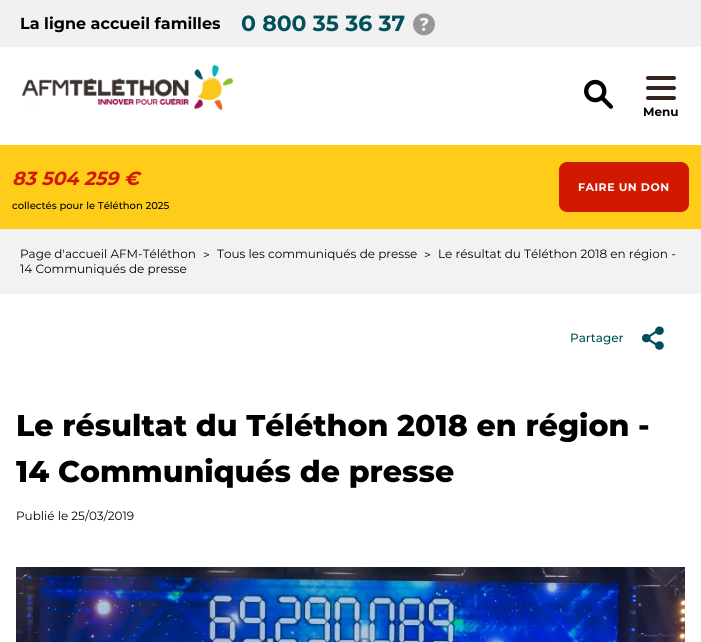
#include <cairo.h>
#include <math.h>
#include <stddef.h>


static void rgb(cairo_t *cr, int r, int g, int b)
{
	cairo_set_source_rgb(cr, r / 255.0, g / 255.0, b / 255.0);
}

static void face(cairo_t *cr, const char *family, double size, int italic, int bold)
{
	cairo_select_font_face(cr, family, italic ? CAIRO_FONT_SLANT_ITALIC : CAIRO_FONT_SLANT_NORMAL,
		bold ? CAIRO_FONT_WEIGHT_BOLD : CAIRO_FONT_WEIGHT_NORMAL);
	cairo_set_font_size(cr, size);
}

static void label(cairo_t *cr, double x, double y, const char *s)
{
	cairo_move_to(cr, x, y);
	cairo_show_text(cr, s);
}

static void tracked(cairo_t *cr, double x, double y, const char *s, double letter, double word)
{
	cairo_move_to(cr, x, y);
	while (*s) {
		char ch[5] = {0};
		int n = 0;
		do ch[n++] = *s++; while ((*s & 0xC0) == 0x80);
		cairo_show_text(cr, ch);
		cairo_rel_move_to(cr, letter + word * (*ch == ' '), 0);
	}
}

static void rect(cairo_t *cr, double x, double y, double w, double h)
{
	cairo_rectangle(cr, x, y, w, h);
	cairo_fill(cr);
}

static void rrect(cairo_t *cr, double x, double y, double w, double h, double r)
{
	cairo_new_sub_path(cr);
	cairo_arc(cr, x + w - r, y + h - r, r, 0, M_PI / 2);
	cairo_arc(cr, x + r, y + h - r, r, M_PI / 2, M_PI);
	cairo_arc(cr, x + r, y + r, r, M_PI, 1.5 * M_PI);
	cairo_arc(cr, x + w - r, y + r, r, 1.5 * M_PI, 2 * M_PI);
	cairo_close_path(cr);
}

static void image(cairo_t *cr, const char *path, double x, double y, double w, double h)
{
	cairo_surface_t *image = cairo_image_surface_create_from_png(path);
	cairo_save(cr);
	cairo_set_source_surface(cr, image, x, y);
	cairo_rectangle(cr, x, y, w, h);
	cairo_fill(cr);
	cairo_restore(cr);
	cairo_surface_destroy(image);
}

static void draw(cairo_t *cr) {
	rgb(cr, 255, 255, 255);
	cairo_paint(cr);
	rgb(cr, 241, 241, 241);
	rect(cr, 0, 0, 701, 47);
	face(cr, "Montserrat", 16, 0, 1);
	rgb(cr, 0, 0, 0);
	label(cr, 20, 29, "La ligne accueil familles");
	face(cr, "Montserrat", 22, 0, 1);
	rgb(cr, 0, 80, 90);
	label(cr, 241, 31, "0 800 35 36 37");
	image(cr, "image0.png", 413, 13, 22, 23);
	image(cr, "image1.png", 22, 65, 211, 45);
	image(cr, "image2.png", 584, 79, 29, 30);
	rgb(cr, 52, 36, 31);
	rrect(cr, 646, 76, 30, 4, 2);
	cairo_fill(cr);
	rrect(cr, 646, 86, 30, 4, 2);
	cairo_fill(cr);
	rrect(cr, 646, 96, 30, 4, 2);
	cairo_fill(cr);
	face(cr, "Montserrat", 12, 0, 1);
	rgb(cr, 0, 0, 0);
	label(cr, 643, 116, "Menu");
	rgb(cr, 255, 205, 25);
	rect(cr, 0, 145, 701, 84);
	face(cr, "Montserrat", 19, 1, 1);
	rgb(cr, 208, 25, 0);
	label(cr, 12, 185, "83 504 259 €");
	face(cr, "Montserrat Medium", 10, 0, 0);
	rgb(cr, 0, 0, 0);
	label(cr, 12, 209, "collectés pour le Téléthon 2025");
	rgb(cr, 208, 25, 0);
	rrect(cr, 559, 162, 130, 50, 8);
	cairo_fill(cr);
	face(cr, "Montserrat", 11, 0, 1);
	rgb(cr, 255, 255, 255);
	tracked(cr, 578, 191, "FAIRE UN DON", 0.5, 0);
	rgb(cr, 242, 242, 242);
	rect(cr, 0, 229, 701, 65);
	face(cr, "Montserrat", 12, 0, 0);
	rgb(cr, 0, 0, 0);
	label(cr, 20, 258, "Page d'accueil AFM-Téléthon");
	label(cr, 203, 259, ">");
	label(cr, 217, 258, "Tous les communiqués de presse");
	label(cr, 424, 259, ">");
	label(cr, 438, 258, "Le résultat du Téléthon 2018 en région -");
	label(cr, 20, 273, "14 Communiqués de presse");
	face(cr, "Montserrat Medium", 12, 0, 0);
	rgb(cr, 0, 80, 90);
	label(cr, 570, 342, "Partager");
	image(cr, "image3.png", 641, 326, 23, 24);
	face(cr, "Montserrat ExtraBold", 30, 0, 0);
	rgb(cr, 0, 0, 0);
	label(cr, 16, 436, "Le résultat du Téléthon 2018 en région -");
	label(cr, 16, 482, "14 Communiqués de presse");
	face(cr, "Montserrat", 12, 0, 0);
	label(cr, 16, 520, "Publié le 25/03/2019");
	image(cr, "image4.png", 16, 567, 669, 75);
}

int main(void) {
	cairo_surface_t *surface = cairo_image_surface_create(CAIRO_FORMAT_RGB24, 701, 642);
	cairo_t *cr = cairo_create(surface);
	cairo_font_options_t *options = cairo_font_options_create();
	cairo_font_options_set_hint_metrics(options, CAIRO_HINT_METRICS_OFF);
	cairo_font_options_set_hint_style(options, CAIRO_HINT_STYLE_NONE);
	cairo_set_font_options(cr, options);
	cairo_set_miter_limit(cr, 4);
	draw(cr);
	cairo_surface_write_to_png(surface, "render.png");
	cairo_font_options_destroy(options);
	cairo_destroy(cr);
	cairo_surface_destroy(surface);
	return 0;
}
